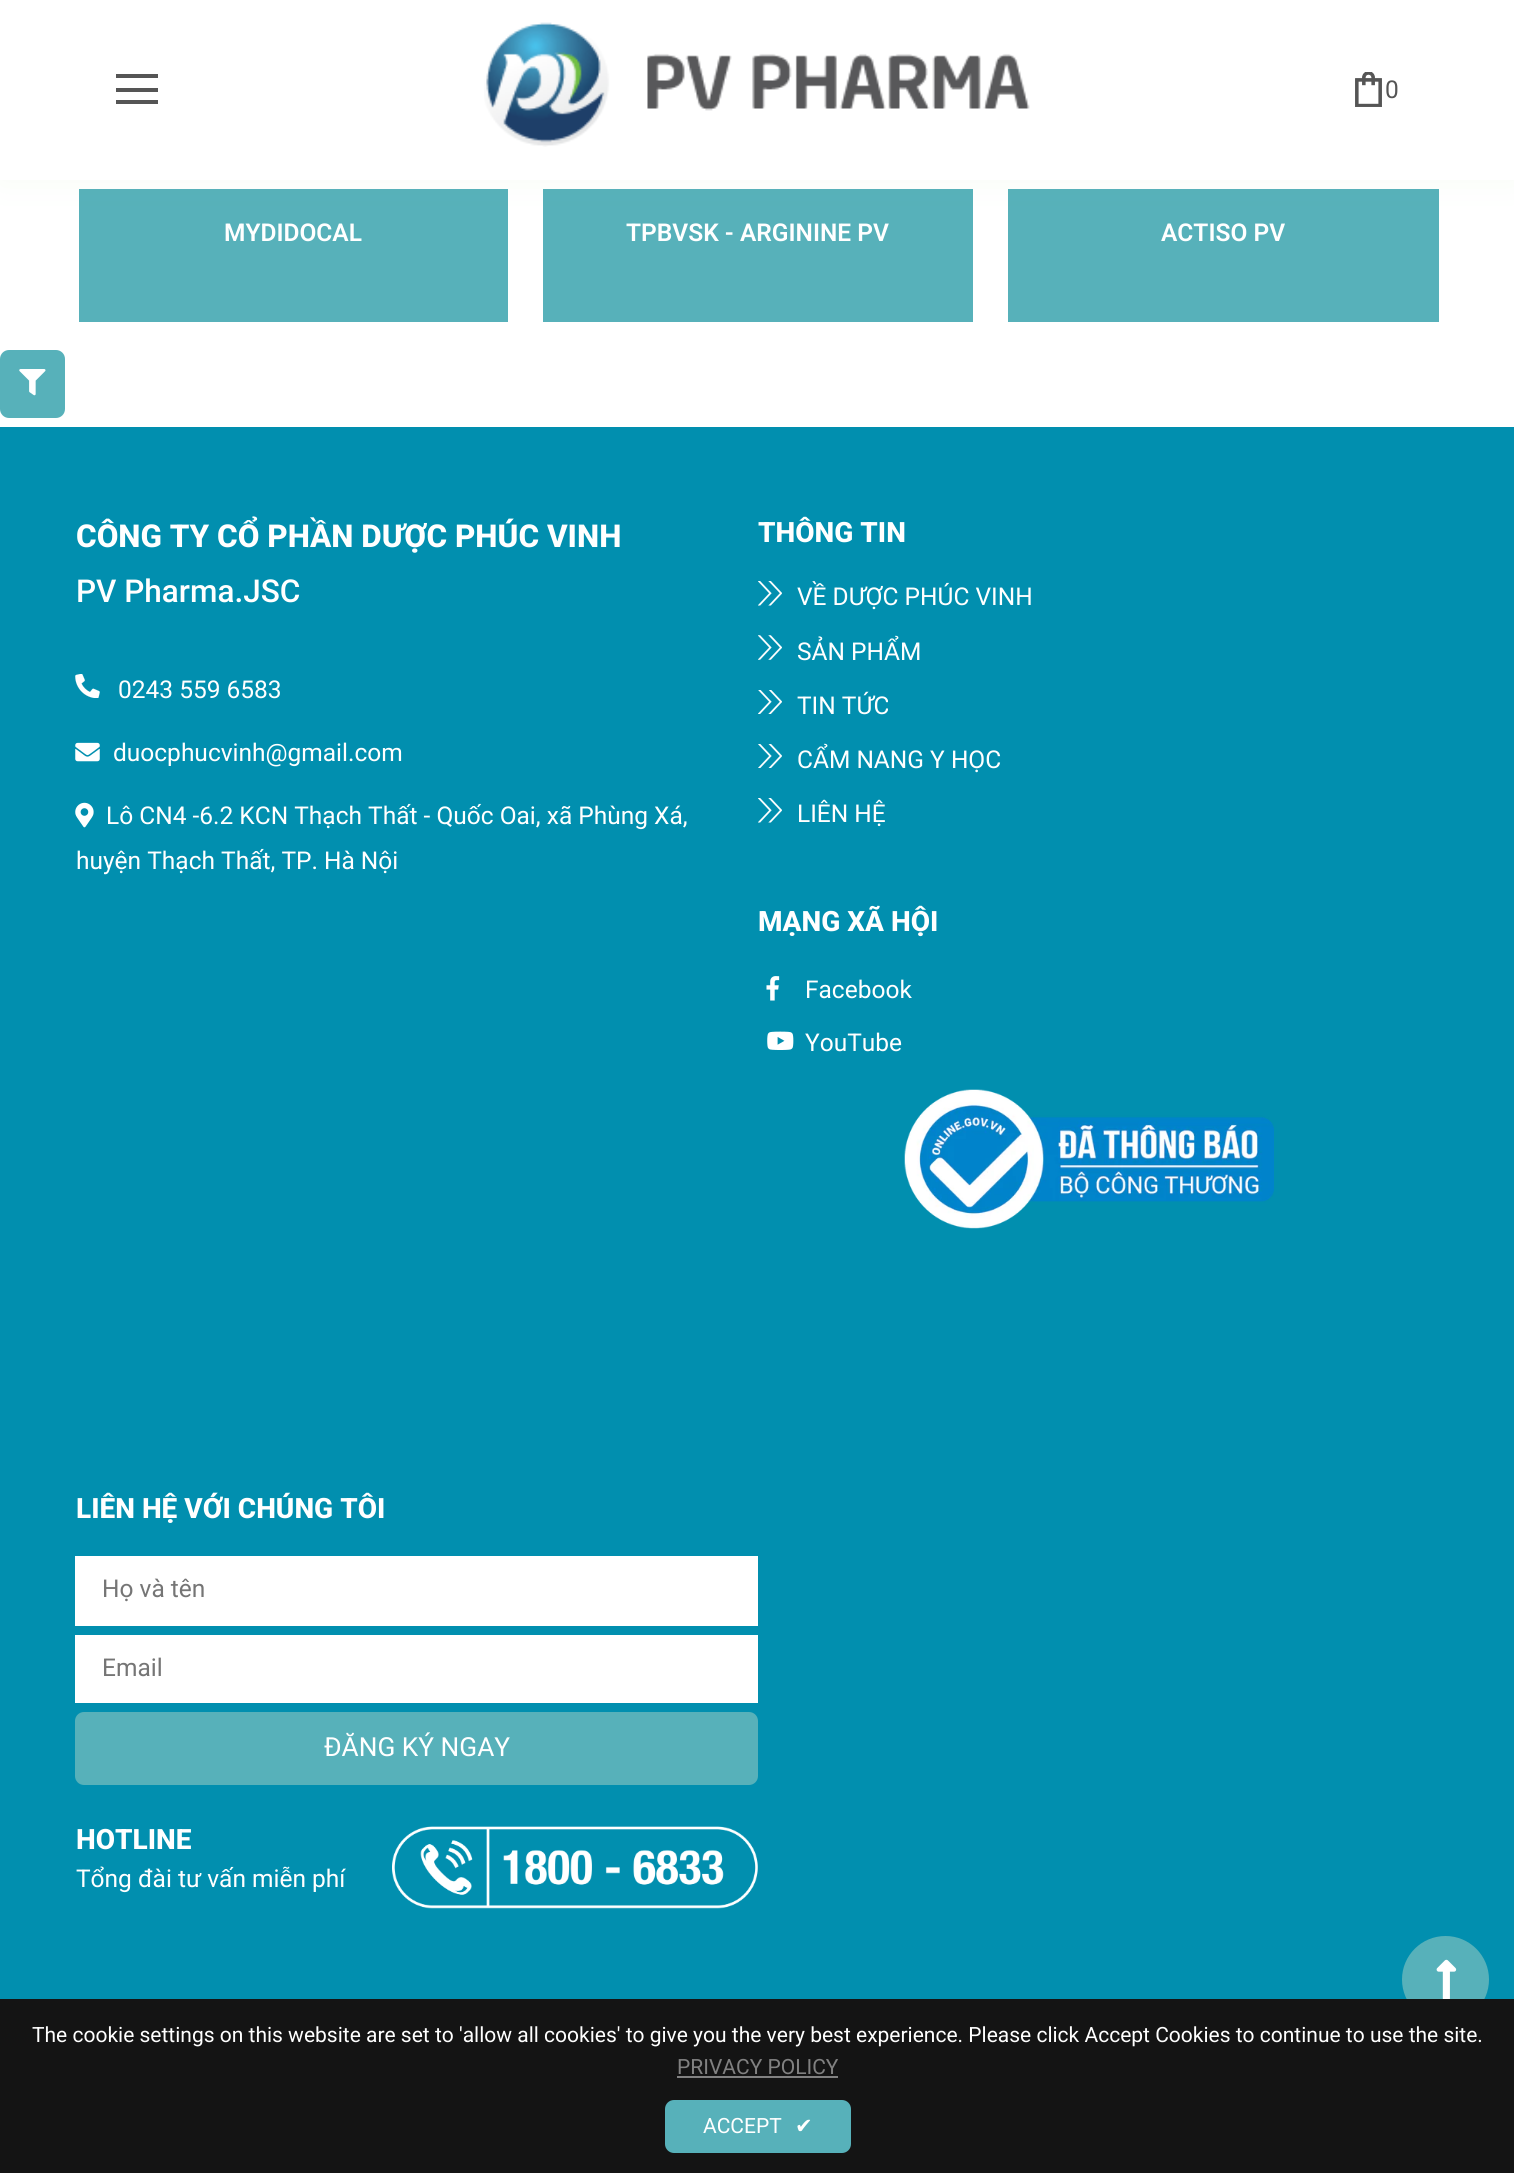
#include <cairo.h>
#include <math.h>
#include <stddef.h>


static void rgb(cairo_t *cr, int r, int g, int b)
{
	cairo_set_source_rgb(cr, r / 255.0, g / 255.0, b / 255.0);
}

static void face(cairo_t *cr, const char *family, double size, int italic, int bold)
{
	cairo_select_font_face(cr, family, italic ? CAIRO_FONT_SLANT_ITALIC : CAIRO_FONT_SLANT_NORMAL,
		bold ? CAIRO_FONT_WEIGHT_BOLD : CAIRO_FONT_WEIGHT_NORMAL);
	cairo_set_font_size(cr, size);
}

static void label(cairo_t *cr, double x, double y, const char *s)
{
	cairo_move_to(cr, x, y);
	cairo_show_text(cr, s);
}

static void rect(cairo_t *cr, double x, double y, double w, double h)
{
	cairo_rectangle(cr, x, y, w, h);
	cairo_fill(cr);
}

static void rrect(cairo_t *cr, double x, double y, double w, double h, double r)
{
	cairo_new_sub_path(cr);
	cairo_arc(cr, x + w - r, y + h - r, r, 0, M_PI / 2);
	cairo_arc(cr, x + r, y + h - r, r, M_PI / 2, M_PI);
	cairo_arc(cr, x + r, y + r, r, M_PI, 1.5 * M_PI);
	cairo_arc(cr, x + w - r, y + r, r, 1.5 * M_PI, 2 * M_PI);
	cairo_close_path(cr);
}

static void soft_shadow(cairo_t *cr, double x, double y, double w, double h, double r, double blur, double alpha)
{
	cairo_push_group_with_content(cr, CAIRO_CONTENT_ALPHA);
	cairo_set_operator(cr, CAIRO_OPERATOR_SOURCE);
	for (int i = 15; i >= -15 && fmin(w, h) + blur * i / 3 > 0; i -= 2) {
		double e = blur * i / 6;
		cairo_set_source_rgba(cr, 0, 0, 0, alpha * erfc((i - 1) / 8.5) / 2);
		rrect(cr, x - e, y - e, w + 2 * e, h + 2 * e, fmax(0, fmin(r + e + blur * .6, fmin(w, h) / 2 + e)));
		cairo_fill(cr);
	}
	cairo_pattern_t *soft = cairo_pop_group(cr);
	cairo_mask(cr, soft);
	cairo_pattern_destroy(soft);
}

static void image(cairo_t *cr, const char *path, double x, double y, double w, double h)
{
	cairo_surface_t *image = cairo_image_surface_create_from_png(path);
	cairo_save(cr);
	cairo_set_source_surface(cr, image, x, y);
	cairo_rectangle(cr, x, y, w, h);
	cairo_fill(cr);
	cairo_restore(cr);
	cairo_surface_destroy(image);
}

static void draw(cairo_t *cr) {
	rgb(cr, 255, 255, 255);
	cairo_paint(cr);
	rgb(cr, 87, 177, 186);
	rect(cr, 79, 189, 429, 133);
	rect(cr, 543, 189, 430, 133);
	rect(cr, 1008, 189, 431, 133);
	rgb(cr, 114, 191, 68);
	soft_shadow(cr, 0, 0, 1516, 180, 0, 17.5, 0.06);
	rgb(cr, 255, 255, 255);
	rect(cr, 0, 0, 1514, 180);
	rgb(cr, 85, 85, 85);
	rect(cr, 116, 74, 42, 4);
	rect(cr, 116, 88, 42, 4);
	rect(cr, 116, 100, 42, 4);
	image(cr, "image0.png", 484, 22, 546, 125);
	image(cr, "image1.png", 1355, 72, 27, 35);
	face(cr, "Roboto", 24.5, 0, 0);
	label(cr, 1385, 98, "0");
	face(cr, "Roboto SemiBold", 24.5, 0, 0);
	rgb(cr, 255, 255, 255);
	label(cr, 224, 241, "MYDIDOCAL");
	label(cr, 626, 241, "TPBVSK - ARGININE PV");
	label(cr, 1161, 241, "ACTISO PV");
	rgb(cr, 87, 177, 186);
	rrect(cr, 0, 350, 65, 68, 9);
	cairo_fill(cr);
	image(cr, "image2.png", 19, 369, 27, 27);
	rgb(cr, 1, 143, 175);
	rect(cr, 0, 427, 1514, 1572);
	face(cr, "Roboto ExtraBold", 31.5, 0, 0);
	rgb(cr, 255, 255, 255);
	label(cr, 76, 547, "CÔNG TY CỔ PHẦN DƯỢC PHÚC VINH");
	face(cr, "Roboto Medium", 31.5, 0, 0);
	label(cr, 76, 602, "PV Pharma.JSC");
	image(cr, "image3.png", 75, 674, 25, 24);
	face(cr, "Roboto", 24.5, 0, 0);
	label(cr, 118, 698, "0243 559 6583");
	image(cr, "image4.png", 75, 742, 25, 20);
	label(cr, 113, 761, "duocphucvinh@gmail.com");
	image(cr, "image5.png", 75, 802, 19, 26);
	label(cr, 106, 824, "Lô CN4 -6.2 KCN Thạch Thất - Quốc Oai, xã Phùng Xá,");
	label(cr, 76, 869, "huyện Thạch Thất, TP. Hà Nội");
	face(cr, "Roboto ExtraBold", 28, 0, 0);
	label(cr, 758, 542, "THÔNG TIN");
	image(cr, "image6.png", 758, 581, 24, 25);
	face(cr, "Roboto", 24.5, 0, 0);
	label(cr, 797, 605, "VỀ DƯỢC PHÚC VINH");
	image(cr, "image7.png", 758, 635, 24, 25);
	label(cr, 797, 660, "SẢN PHẨM");
	image(cr, "image8.png", 758, 690, 24, 24);
	label(cr, 797, 714, "TIN TỨC");
	image(cr, "image9.png", 758, 744, 24, 24);
	label(cr, 797, 768, "CẨM NANG Y HỌC");
	image(cr, "image6.png", 758, 798, 24, 25);
	label(cr, 797, 822, "LIÊN HỆ");
	face(cr, "Roboto ExtraBold", 28, 0, 0);
	label(cr, 758, 931, "MẠNG XÃ HỘI");
	image(cr, "image10.png", 766, 976, 14, 25);
	face(cr, "Roboto", 24.5, 0, 0);
	label(cr, 805, 998, "Facebook");
	image(cr, "image11.png", 767, 1031, 27, 19);
	label(cr, 805, 1051, "YouTube");
	image(cr, "image12.png", 904, 1089, 370, 140);
	face(cr, "Roboto ExtraBold", 28, 0, 0);
	label(cr, 76, 1518, "LIÊN HỆ VỚI CHÚNG TÔI");
	rect(cr, 75, 1556, 683, 70);
	face(cr, "Roboto", 24.5, 0, 0);
	rgb(cr, 117, 117, 117);
	label(cr, 102, 1597, "Họ và tên");
	rgb(cr, 255, 255, 255);
	rect(cr, 75, 1635, 683, 68);
	rgb(cr, 117, 117, 117);
	label(cr, 102, 1676, "Email");
	rgb(cr, 87, 177, 186);
	rrect(cr, 75, 1712, 683, 73, 9);
	cairo_fill(cr);
	face(cr, "Roboto", 26.25, 0, 0);
	rgb(cr, 255, 255, 255);
	label(cr, 324, 1756, "ĐĂNG KÝ NGAY");
	face(cr, "Roboto ExtraBold", 28, 0, 0);
	label(cr, 76, 1849, "HOTLINE");
	face(cr, "Roboto", 24.5, 0, 0);
	label(cr, 76, 1887, "Tổng đài tư vấn miễn phí");
	image(cr, "image13.png", 392, 1826, 366, 83);
	rgb(cr, 87, 177, 186);
	cairo_arc(cr, 1445.5, 1979.5, 43.5, 0, 2 * M_PI);
	cairo_fill(cr);
	image(cr, "image14.png", 1436, 1959, 21, 40);
	rgb(cr, 20, 20, 20);
	rect(cr, 0, 1999, 1514, 174);
	face(cr, "Roboto", 21, 0, 0);
	rgb(cr, 255, 255, 255);
	label(cr, 32, 2042, "The cookie settings on this website are set to 'allow all cookies' to give you the very best experience. Please click Accept Cookies to continue to use the site.");
	rgb(cr, 129, 129, 129);
	label(cr, 677, 2074, "PRIVACY POLICY");
	rect(cr, 677, 2076, 161, 2);
	rgb(cr, 87, 177, 186);
	rrect(cr, 665, 2100, 186, 53, 9);
	cairo_fill(cr);
	rgb(cr, 255, 255, 255);
	label(cr, 703, 2133, "ACCEPT");
	face(cr, "DejaVu Sans", 21, 0, 0);
	label(cr, 795, 2133, "✔");
}

int main(void) {
	cairo_surface_t *surface = cairo_image_surface_create(CAIRO_FORMAT_RGB24, 1514, 2173);
	cairo_t *cr = cairo_create(surface);
	cairo_font_options_t *options = cairo_font_options_create();
	cairo_font_options_set_hint_metrics(options, CAIRO_HINT_METRICS_OFF);
	cairo_font_options_set_hint_style(options, CAIRO_HINT_STYLE_NONE);
	cairo_set_font_options(cr, options);
	cairo_set_miter_limit(cr, 4);
	draw(cr);
	cairo_surface_write_to_png(surface, "render.png");
	cairo_font_options_destroy(options);
	cairo_destroy(cr);
	cairo_surface_destroy(surface);
	return 0;
}
